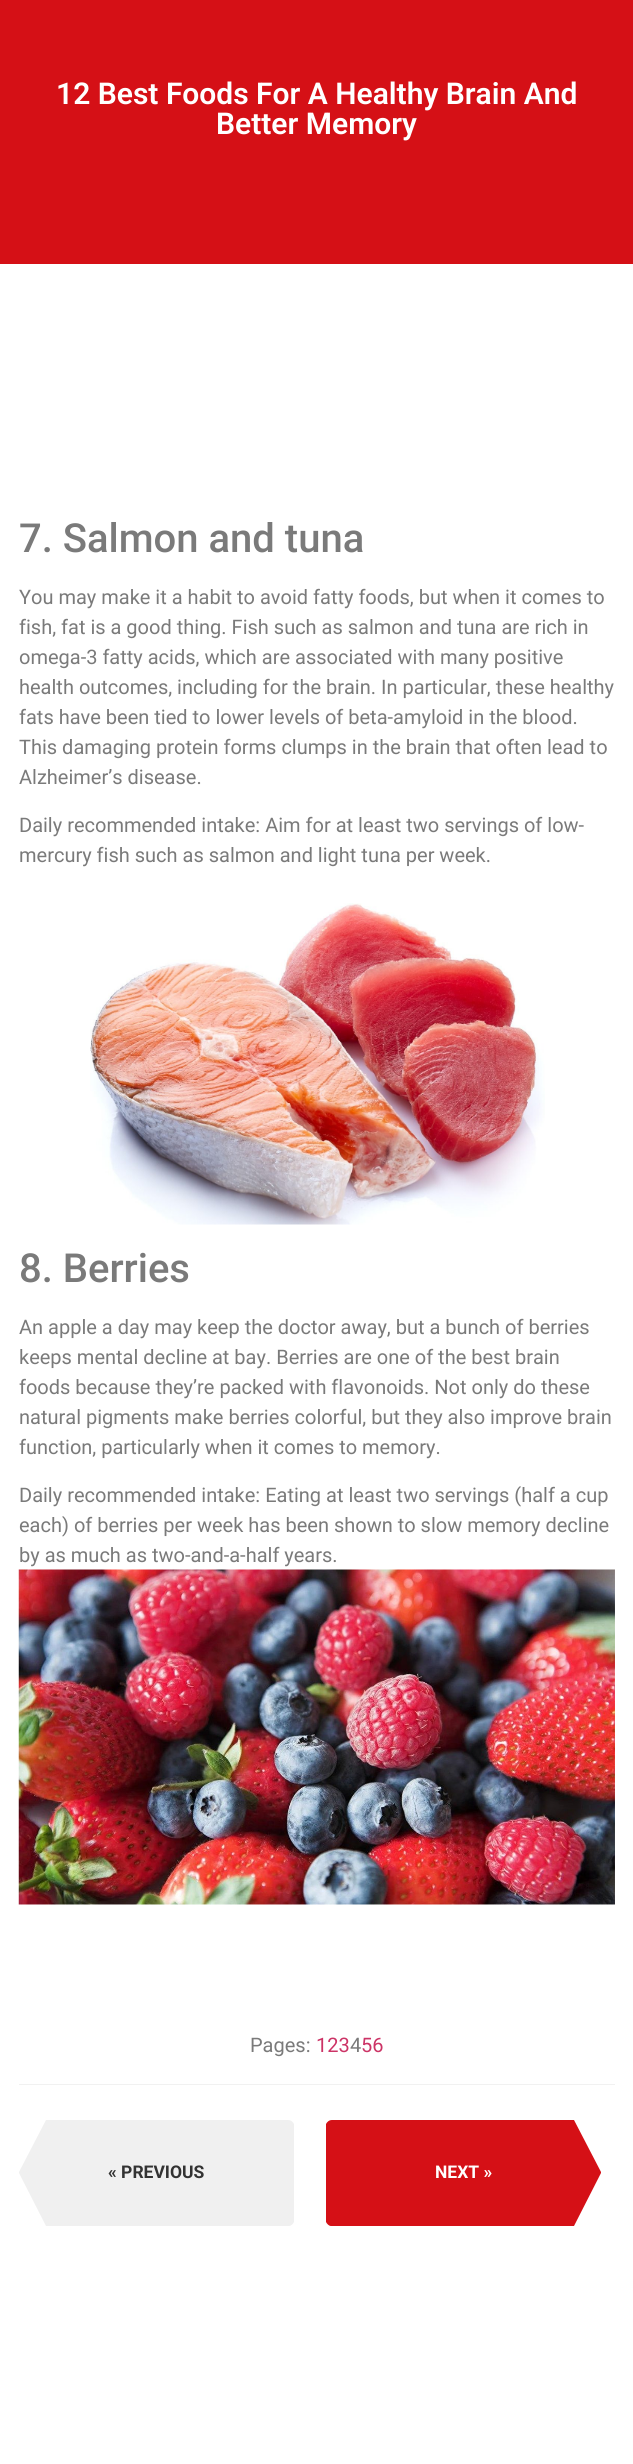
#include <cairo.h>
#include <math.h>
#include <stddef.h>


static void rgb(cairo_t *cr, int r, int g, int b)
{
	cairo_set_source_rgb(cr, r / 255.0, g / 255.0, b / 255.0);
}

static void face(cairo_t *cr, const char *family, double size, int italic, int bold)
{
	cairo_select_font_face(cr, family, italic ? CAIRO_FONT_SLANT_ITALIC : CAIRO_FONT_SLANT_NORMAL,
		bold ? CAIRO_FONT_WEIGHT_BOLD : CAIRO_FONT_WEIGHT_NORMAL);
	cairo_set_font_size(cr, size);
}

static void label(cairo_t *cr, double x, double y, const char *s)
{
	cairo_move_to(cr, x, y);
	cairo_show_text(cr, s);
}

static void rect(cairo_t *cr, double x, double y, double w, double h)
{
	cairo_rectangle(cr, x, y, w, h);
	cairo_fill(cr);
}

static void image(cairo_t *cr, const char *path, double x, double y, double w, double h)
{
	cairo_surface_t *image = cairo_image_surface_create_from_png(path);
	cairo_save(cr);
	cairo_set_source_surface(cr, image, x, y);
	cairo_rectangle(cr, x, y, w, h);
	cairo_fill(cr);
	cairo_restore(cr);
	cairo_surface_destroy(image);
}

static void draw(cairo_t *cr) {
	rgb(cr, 255, 255, 255);
	cairo_paint(cr);
	rgb(cr, 213, 16, 22);
	rect(cr, 0, 0, 633, 264);
	face(cr, "Roboto SemiBold", 30, 0, 0);
	rgb(cr, 255, 255, 255);
	label(cr, 56, 104, "12 Best Foods For A Healthy Brain And");
	label(cr, 216, 134, "Better Memory");
	face(cr, "Roboto Medium", 40, 0, 0);
	rgb(cr, 122, 122, 122);
	label(cr, 19, 552, "7. Salmon and tuna");
	face(cr, "Roboto", 20, 0, 0);
	label(cr, 19, 604, "You may make it a habit to avoid fatty foods, but when it comes to");
	label(cr, 19, 634, "fish, fat is a good thing. Fish such as salmon and tuna are rich in");
	label(cr, 19, 664, "omega-3 fatty acids, which are associated with many positive");
	label(cr, 19, 694, "health outcomes, including for the brain. In particular, these healthy");
	label(cr, 19, 724, "fats have been tied to lower levels of beta-amyloid in the blood.");
	label(cr, 19, 754, "This damaging protein forms clumps in the brain that often lead to");
	label(cr, 19, 784, "Alzheimer’s disease.");
	label(cr, 19, 832, "Daily recommended intake: Aim for at least two servings of low-");
	label(cr, 19, 862, "mercury fish such as salmon and light tuna per week.");
	image(cr, "image0.png", 90, 903, 455, 322);
	face(cr, "Roboto Medium", 40, 0, 0);
	label(cr, 19, 1282, "8. Berries");
	face(cr, "Roboto", 20, 0, 0);
	label(cr, 19, 1334, "An apple a day may keep the doctor away, but a bunch of berries");
	label(cr, 19, 1364, "keeps mental decline at bay. Berries are one of the best brain");
	label(cr, 19, 1394, "foods because they’re packed with flavonoids. Not only do these");
	label(cr, 19, 1424, "natural pigments make berries colorful, but they also improve brain");
	label(cr, 19, 1454, "function, particularly when it comes to memory.");
	label(cr, 19, 1502, "Daily recommended intake: Eating at least two servings (half a cup");
	label(cr, 19, 1532, "each) of berries per week has been shown to slow memory decline");
	label(cr, 19, 1562, "by as much as two-and-a-half years.");
	image(cr, "image1.png", 18, 1569, 597, 336);
	label(cr, 250, 2052, "Pages:");
	rgb(cr, 204, 51, 102);
	label(cr, 316, 2052, "123");
	rgb(cr, 122, 122, 122);
	label(cr, 350, 2052, "4");
	rgb(cr, 204, 51, 102);
	label(cr, 361, 2052, "56");
	rgb(cr, 241, 241, 241);
	rect(cr, 19, 2084, 596, 1);
	rgb(cr, 240, 240, 240);
	cairo_new_path(cr);
	cairo_move_to(cr, 289, 2226);
	cairo_line_to(cr, 46, 2226);
	cairo_line_to(cr, 19, 2173);
	cairo_line_to(cr, 19, 2172);
	cairo_line_to(cr, 46, 2120);
	cairo_line_to(cr, 288, 2120);
	cairo_curve_to(cr, 291, 2120, 293, 2122, 294, 2124);
	cairo_line_to(cr, 294, 2222);
	cairo_curve_to(cr, 293, 2224, 291, 2226, 289, 2226);
	cairo_close_path(cr);
	cairo_fill(cr);
	face(cr, "Roboto", 17.5, 0, 1);
	rgb(cr, 51, 51, 51);
	label(cr, 108, 2178, "« PREVIOUS");
	rgb(cr, 213, 16, 22);
	cairo_new_path(cr);
	cairo_move_to(cr, 332, 2120);
	cairo_line_to(cr, 574, 2120);
	cairo_line_to(cr, 601, 2172);
	cairo_line_to(cr, 601, 2173);
	cairo_line_to(cr, 574, 2226);
	cairo_line_to(cr, 331, 2226);
	cairo_curve_to(cr, 329, 2226, 327, 2224, 326, 2222);
	cairo_line_to(cr, 326, 2124);
	cairo_curve_to(cr, 327, 2122, 329, 2120, 332, 2120);
	cairo_close_path(cr);
	cairo_fill(cr);
	rgb(cr, 255, 255, 255);
	label(cr, 435, 2178, "NEXT »");
}

int main(void) {
	cairo_surface_t *surface = cairo_image_surface_create(CAIRO_FORMAT_RGB24, 633, 2464);
	cairo_t *cr = cairo_create(surface);
	cairo_font_options_t *options = cairo_font_options_create();
	cairo_font_options_set_hint_metrics(options, CAIRO_HINT_METRICS_OFF);
	cairo_font_options_set_hint_style(options, CAIRO_HINT_STYLE_NONE);
	cairo_set_font_options(cr, options);
	cairo_set_miter_limit(cr, 4);
	draw(cr);
	cairo_surface_write_to_png(surface, "render.png");
	cairo_font_options_destroy(options);
	cairo_destroy(cr);
	cairo_surface_destroy(surface);
	return 0;
}
